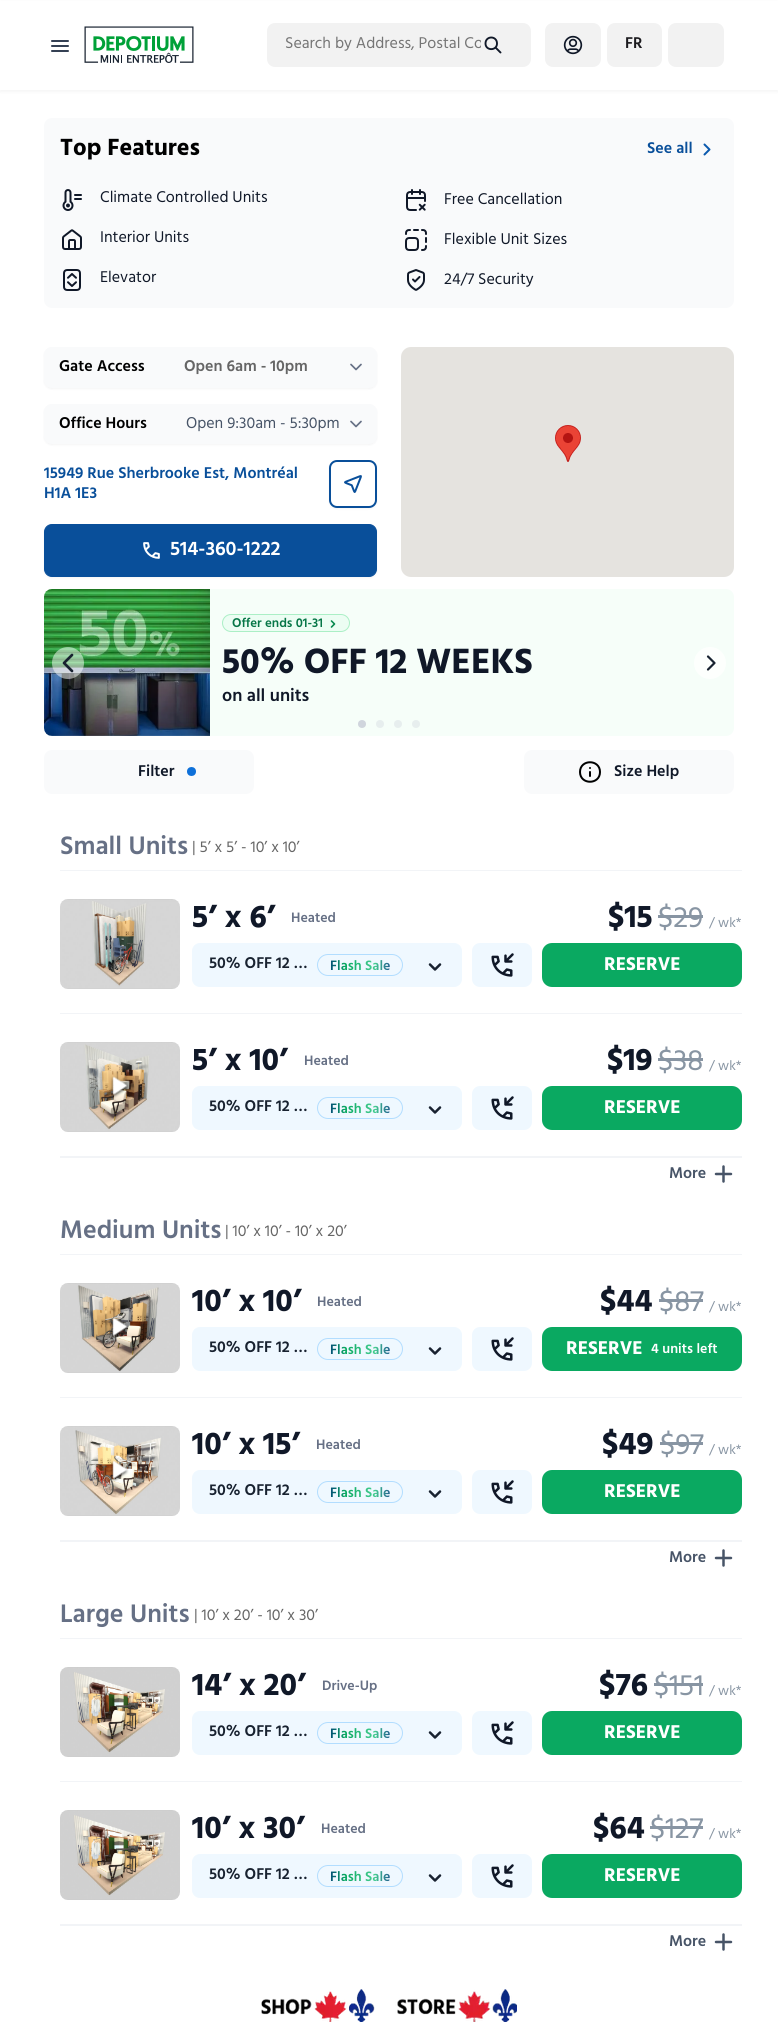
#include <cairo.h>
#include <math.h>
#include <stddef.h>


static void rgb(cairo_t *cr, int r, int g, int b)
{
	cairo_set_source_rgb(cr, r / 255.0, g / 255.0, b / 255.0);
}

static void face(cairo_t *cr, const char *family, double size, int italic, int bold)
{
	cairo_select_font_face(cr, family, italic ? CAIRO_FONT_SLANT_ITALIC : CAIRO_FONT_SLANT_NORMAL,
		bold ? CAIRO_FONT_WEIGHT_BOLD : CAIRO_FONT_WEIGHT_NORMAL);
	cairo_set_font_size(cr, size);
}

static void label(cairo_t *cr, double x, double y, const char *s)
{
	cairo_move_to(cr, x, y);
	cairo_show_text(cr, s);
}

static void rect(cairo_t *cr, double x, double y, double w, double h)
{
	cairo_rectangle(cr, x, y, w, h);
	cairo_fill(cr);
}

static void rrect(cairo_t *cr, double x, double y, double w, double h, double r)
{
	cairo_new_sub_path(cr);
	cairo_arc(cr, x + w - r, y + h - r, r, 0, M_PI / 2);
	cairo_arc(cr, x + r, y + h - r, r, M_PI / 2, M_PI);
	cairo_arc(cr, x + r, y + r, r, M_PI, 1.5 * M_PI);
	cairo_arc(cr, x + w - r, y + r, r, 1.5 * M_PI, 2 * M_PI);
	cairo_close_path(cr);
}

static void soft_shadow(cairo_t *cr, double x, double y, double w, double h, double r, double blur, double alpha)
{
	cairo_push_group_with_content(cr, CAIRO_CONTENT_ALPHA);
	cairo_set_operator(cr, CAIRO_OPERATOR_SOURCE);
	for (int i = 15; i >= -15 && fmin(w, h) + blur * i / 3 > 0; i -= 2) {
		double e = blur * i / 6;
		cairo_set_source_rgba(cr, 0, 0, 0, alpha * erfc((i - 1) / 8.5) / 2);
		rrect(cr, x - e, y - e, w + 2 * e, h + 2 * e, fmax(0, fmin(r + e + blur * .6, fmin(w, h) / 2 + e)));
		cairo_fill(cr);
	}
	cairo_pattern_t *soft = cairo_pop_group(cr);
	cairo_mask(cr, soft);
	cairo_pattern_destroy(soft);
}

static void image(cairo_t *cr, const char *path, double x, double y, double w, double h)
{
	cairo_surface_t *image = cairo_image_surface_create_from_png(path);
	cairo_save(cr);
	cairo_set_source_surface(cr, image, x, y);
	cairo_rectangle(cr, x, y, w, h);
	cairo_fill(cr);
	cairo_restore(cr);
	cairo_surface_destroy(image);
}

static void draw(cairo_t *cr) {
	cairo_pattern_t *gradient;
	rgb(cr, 255, 255, 255);
	cairo_paint(cr);
	rgb(cr, 0, 0, 0);
	soft_shadow(cr, 0, 2, 778, 90, 0, 1.5, 0.04);
	rgb(cr, 255, 255, 255);
	rect(cr, 0, 1, 778, 89);
	rgb(cr, 52, 64, 84);
	rrect(cr, 51, 40, 18, 2, 1);
	cairo_fill(cr);
	rrect(cr, 51, 45, 18, 2, 1);
	cairo_fill(cr);
	rrect(cr, 51, 50, 18, 2, 1);
	cairo_fill(cr);
	image(cr, "image0.png", 84, 26, 110, 37);
	rgb(cr, 242, 242, 242);
	rrect(cr, 267, 23, 264, 44, 8);
	cairo_fill(cr);
	cairo_save(cr);
	cairo_rectangle(cr, 285, 34, 196, 22);
	cairo_clip(cr);
	face(cr, "Hind", 16, 0, 0);
	rgb(cr, 117, 117, 117);
	label(cr, 285, 48, "Search by Address, Postal Co");
	cairo_restore(cr);
	cairo_new_path(cr);
	cairo_move_to(cr, 500.5, 52.5);
	cairo_line_to(cr, 495.5, 47.5);
	cairo_move_to(cr, 497, 43.5);
	cairo_curve_to(cr, 497, 51, 485.5, 51, 485.5, 43.5);
	cairo_curve_to(cr, 485.5, 35.5, 497, 35.5, 497, 43.5);
	cairo_close_path(cr);
	rgb(cr, 16, 24, 40);
	cairo_set_line_width(cr, 1.9);
	cairo_set_line_cap(cr, CAIRO_LINE_CAP_ROUND);
	cairo_set_line_join(cr, CAIRO_LINE_JOIN_ROUND);
	cairo_stroke(cr);
	rgb(cr, 242, 242, 242);
	rrect(cr, 545, 23, 56, 44, 8);
	cairo_fill(cr);
	image(cr, "image1.png", 563, 35, 20, 20);
	rrect(cr, 607, 23, 55, 44, 8);
	cairo_fill(cr);
	face(cr, "Hind SemiBold", 16, 0, 0);
	rgb(cr, 28, 27, 31);
	label(cr, 625, 48, "FR");
	rgb(cr, 242, 242, 242);
	rrect(cr, 668, 23, 56, 44, 8);
	cairo_fill(cr);
	rgb(cr, 249, 250, 251);
	rrect(cr, 44, 118, 690, 190, 8);
	cairo_fill(cr);
	face(cr, "Hind", 24, 0, 1);
	rgb(cr, 0, 0, 0);
	label(cr, 60, 155, "Top Features");
	face(cr, "Hind SemiBold", 16, 0, 0);
	rgb(cr, 9, 79, 154);
	label(cr, 647, 153, "See all");
	cairo_new_path(cr);
	cairo_move_to(cr, 704.5, 154.5);
	cairo_line_to(cr, 709.5, 149.5);
	cairo_line_to(cr, 704.5, 144.5);
	rgb(cr, 11, 90, 174);
	cairo_set_line_width(cr, 2);
	cairo_stroke(cr);
	image(cr, "image2.png", 62, 189, 20, 22);
	face(cr, "Hind", 16, 0, 0);
	rgb(cr, 16, 24, 40);
	label(cr, 100, 202, "Climate Controlled Units");
	image(cr, "image3.png", 62, 229, 20, 21);
	label(cr, 100, 242, "Interior Units");
	image(cr, "image4.png", 63, 269, 18, 22);
	label(cr, 100, 282, "Elevator");
	image(cr, "image5.png", 406, 189, 20, 22);
	label(cr, 444, 204, "Free Cancellation");
	image(cr, "image6.png", 405, 229, 22, 22);
	label(cr, 444, 244, "Flexible Unit Sizes");
	image(cr, "image7.png", 407, 269, 18, 22);
	label(cr, 444, 284, "24/7 Security");
	rgb(cr, 16, 24, 40);
	soft_shadow(cr, 44, 348, 333, 41, 8, 1, 0.05);
	rgb(cr, 249, 250, 251);
	rrect(cr, 44, 347, 333, 41, 8);
	cairo_fill(cr);
	face(cr, "Hind SemiBold", 16, 0, 0);
	rgb(cr, 0, 0, 0);
	label(cr, 59, 371, "Gate Access");
	rgb(cr, 102, 102, 102);
	label(cr, 184, 371, "Open 6am - 10pm");
	cairo_new_path(cr);
	cairo_move_to(cr, 351, 364.5);
	cairo_line_to(cr, 356, 369.5);
	cairo_line_to(cr, 361, 364.5);
	rgb(cr, 102, 112, 133);
	cairo_set_line_width(cr, 1.7);
	cairo_stroke(cr);
	rgb(cr, 16, 24, 40);
	soft_shadow(cr, 44, 405, 333, 40, 8, 1, 0.05);
	rgb(cr, 249, 250, 251);
	rrect(cr, 44, 404, 333, 40, 8);
	cairo_fill(cr);
	rgb(cr, 0, 0, 0);
	label(cr, 59, 428, "Office Hours");
	face(cr, "Hind", 16, 0, 0);
	rgb(cr, 71, 84, 103);
	label(cr, 186, 428, "Open 9:30am - 5:30pm");
	cairo_new_path(cr);
	cairo_move_to(cr, 351, 421.5);
	cairo_line_to(cr, 356, 426.5);
	cairo_line_to(cr, 361, 421.5);
	rgb(cr, 102, 112, 133);
	cairo_stroke(cr);
	face(cr, "Hind SemiBold", 16, 0, 0);
	rgb(cr, 9, 79, 154);
	label(cr, 44, 478, "15949 Rue Sherbrooke Est, Montréal");
	label(cr, 44, 498, "H1A 1E3");
	rgb(cr, 16, 24, 40);
	soft_shadow(cr, 329, 461, 48, 48, 8, 1, 0.05);
	rgb(cr, 255, 255, 255);
	rrect(cr, 330, 461, 46, 46, 7);
	cairo_fill_preserve(cr);
	rgb(cr, 9, 79, 154);
	cairo_set_line_width(cr, 2);
	cairo_set_line_cap(cr, CAIRO_LINE_CAP_BUTT);
	cairo_set_line_join(cr, CAIRO_LINE_JOIN_MITER);
	cairo_stroke(cr);
	image(cr, "image8.png", 344, 475, 18, 18);
	rgb(cr, 16, 24, 40);
	soft_shadow(cr, 44, 525, 333, 53, 8, 1, 0.05);
	rgb(cr, 9, 79, 154);
	rrect(cr, 44.5, 524.5, 332, 52, 7.5);
	cairo_fill_preserve(cr);
	cairo_set_line_width(cr, 1);
	cairo_stroke(cr);
	image(cr, "image9.png", 143, 542, 17, 17);
	face(cr, "Hind SemiBold", 20, 0, 0);
	rgb(cr, 255, 255, 255);
	label(cr, 170, 555, "514-360-1222");
	rgb(cr, 229, 227, 223);
	rrect(cr, 401, 347, 333, 230, 10);
	cairo_fill(cr);
	image(cr, "image10.png", 555, 425, 26, 37);
	rgb(cr, 246, 254, 249);
	rrect(cr, 44, 589, 690, 147, 8);
	cairo_fill(cr);
	image(cr, "image11.png", 44, 589, 166, 147);
	cairo_set_source_rgba(cr, 1, 1, 1, 0.5);
	cairo_arc(cr, 68, 663, 16, 0, 2 * M_PI);
	cairo_fill(cr);
	cairo_new_path(cr);
	cairo_move_to(cr, 72, 671);
	cairo_line_to(cr, 64, 663);
	cairo_line_to(cr, 72, 655);
	rgb(cr, 24, 34, 48);
	cairo_set_line_width(cr, 2.7);
	cairo_set_line_cap(cr, CAIRO_LINE_CAP_ROUND);
	cairo_set_line_join(cr, CAIRO_LINE_JOIN_ROUND);
	cairo_stroke(cr);
	rgb(cr, 236, 253, 243);
	rrect(cr, 222.5, 614.5, 127, 17, 8.5);
	cairo_fill_preserve(cr);
	rgb(cr, 171, 239, 198);
	cairo_set_line_width(cr, 1);
	cairo_set_line_cap(cr, CAIRO_LINE_CAP_BUTT);
	cairo_set_line_join(cr, CAIRO_LINE_JOIN_MITER);
	cairo_stroke(cr);
	face(cr, "Hind SemiBold", 13, 0, 0);
	rgb(cr, 6, 118, 71);
	label(cr, 232, 627, "Offer ends 01-31");
	cairo_new_path(cr);
	cairo_move_to(cr, 331.5, 627);
	cairo_line_to(cr, 334.5, 624);
	cairo_line_to(cr, 331.5, 621);
	rgb(cr, 6, 136, 78);
	cairo_set_line_width(cr, 1.6);
	cairo_set_line_cap(cr, CAIRO_LINE_CAP_ROUND);
	cairo_set_line_join(cr, CAIRO_LINE_JOIN_ROUND);
	cairo_stroke(cr);
	face(cr, "Hind", 36, 0, 1);
	rgb(cr, 16, 24, 40);
	label(cr, 222, 673, "50% OFF 12 WEEKS");
	face(cr, "Hind SemiBold", 18, 0, 0);
	label(cr, 222, 701, "on all units");
	rgb(cr, 253, 255, 253);
	cairo_new_path(cr);
	cairo_arc(cr, 710, 663, 16, 0, 2 * M_PI);
	cairo_fill(cr);
	cairo_new_path(cr);
	cairo_move_to(cr, 708, 669.5);
	cairo_line_to(cr, 714.5, 663);
	cairo_line_to(cr, 708, 656.5);
	rgb(cr, 24, 34, 48);
	cairo_set_line_width(cr, 2.2);
	cairo_stroke(cr);
	rgb(cr, 208, 213, 221);
	cairo_arc(cr, 362, 724, 4, 0, 2 * M_PI);
	cairo_fill(cr);
	rgb(cr, 231, 238, 238);
	cairo_arc(cr, 380, 724, 4, 0, 2 * M_PI);
	cairo_fill(cr);
	cairo_arc(cr, 398, 724, 4, 0, 2 * M_PI);
	cairo_fill(cr);
	cairo_arc(cr, 416, 724, 4, 0, 2 * M_PI);
	cairo_fill(cr);
	rgb(cr, 249, 250, 251);
	rrect(cr, 44, 750, 210, 44, 8);
	cairo_fill(cr);
	face(cr, "Hind SemiBold", 16, 0, 0);
	rgb(cr, 16, 24, 40);
	label(cr, 138, 776, "Filter");
	rgb(cr, 14, 112, 217);
	cairo_new_path(cr);
	cairo_arc(cr, 191.5, 771.5, 4.5, 0, 2 * M_PI);
	cairo_fill(cr);
	rgb(cr, 249, 250, 251);
	rrect(cr, 524, 750, 210, 44, 8);
	cairo_fill(cr);
	cairo_new_path(cr);
	cairo_move_to(cr, 590, 776);
	cairo_line_to(cr, 590, 772);
	cairo_move_to(cr, 590, 768);
	cairo_line_to(cr, 590, 768);
	cairo_move_to(cr, 600, 772);
	cairo_curve_to(cr, 600, 785, 580, 785, 580, 772);
	cairo_curve_to(cr, 580, 759, 600, 759, 600, 772);
	cairo_close_path(cr);
	rgb(cr, 0, 0, 0);
	cairo_set_line_width(cr, 2);
	cairo_stroke(cr);
	rgb(cr, 16, 24, 40);
	label(cr, 614, 776, "Size Help");
	face(cr, "Hind SemiBold", 26, 0, 0);
	rgb(cr, 102, 112, 133);
	label(cr, 60, 854, "Small Units");
	face(cr, "Hind", 16, 0, 0);
	rgb(cr, 102, 102, 102);
	label(cr, 192, 852, "| 5’ x 5’ - 10’ x 10’");
	rgb(cr, 242, 244, 247);
	rect(cr, 60, 870, 682, 1);
	rect(cr, 60, 1156, 682, 2);
	rect(cr, 60, 1013, 682, 1);
	image(cr, "image12.png", 60, 899, 120, 90);
	face(cr, "Hind", 32, 0, 1);
	rgb(cr, 16, 24, 40);
	label(cr, 192, 927, "5’ x 6’");
	face(cr, "Hind SemiBold", 14, 0, 0);
	rgb(cr, 102, 112, 133);
	label(cr, 291, 922, "Heated");
	face(cr, "Hind", 32, 0, 1);
	rgb(cr, 16, 24, 40);
	label(cr, 608, 927, "$15");
	face(cr, "Hind", 30, 0, 0);
	rgb(cr, 136, 149, 163);
	label(cr, 658, 927, "$29");
	rect(cr, 658, 915, 45, 3);
	face(cr, "Hind", 14, 0, 0);
	label(cr, 709, 927, "/ wk*");
	rgb(cr, 239, 248, 255);
	rrect(cr, 192.5, 943.5, 269, 43, 7.5);
	cairo_fill_preserve(cr);
	cairo_set_line_width(cr, 1);
	cairo_set_line_cap(cr, CAIRO_LINE_CAP_BUTT);
	cairo_set_line_join(cr, CAIRO_LINE_JOIN_MITER);
	cairo_stroke(cr);
	face(cr, "Hind SemiBold", 16, 0, 0);
	rgb(cr, 24, 34, 48);
	label(cr, 209, 968, "50% OFF 12 …");
	rrect(cr, 317.5, 954.5, 85, 21, 10.5);
	rgb(cr, 178, 221, 255);
	cairo_stroke(cr);
	face(cr, "Hind SemiBold", 14, 0, 0);
	gradient = cairo_pattern_create_linear(317, 965, 403, 965);
	cairo_pattern_add_color_stop_rgba(gradient, 0, 0, 0, 0.545, 1);
	cairo_pattern_add_color_stop_rgba(gradient, 0.33, 0.039, 0.663, 0.38, 1);
	cairo_pattern_add_color_stop_rgba(gradient, 0.67, 0.278, 0.804, 0.569, 1);
	cairo_pattern_add_color_stop_rgba(gradient, 1, 0, 0, 0.545, 1);
	cairo_set_source(cr, gradient);
	cairo_pattern_destroy(gradient);
	label(cr, 330, 970, "Flash Sale");
	cairo_new_path(cr);
	cairo_move_to(cr, 430, 964.5);
	cairo_line_to(cr, 435, 969.5);
	cairo_line_to(cr, 440, 964.5);
	rgb(cr, 24, 34, 48);
	cairo_set_line_width(cr, 2.5);
	cairo_set_line_cap(cr, CAIRO_LINE_CAP_ROUND);
	cairo_set_line_join(cr, CAIRO_LINE_JOIN_ROUND);
	cairo_stroke(cr);
	rgb(cr, 239, 248, 255);
	rrect(cr, 472, 943, 60, 44, 8);
	cairo_fill(cr);
	image(cr, "image13.png", 491, 953, 23, 24);
	rgb(cr, 10, 169, 97);
	rrect(cr, 542, 943, 200, 44, 10);
	cairo_fill(cr);
	face(cr, "Hind", 19, 0, 1);
	rgb(cr, 255, 255, 255);
	label(cr, 604, 970, "RESERVE");
	image(cr, "image14.png", 60, 1042, 120, 90);
	image(cr, "image15.png", 110, 1076, 19, 22);
	face(cr, "Hind", 32, 0, 1);
	rgb(cr, 16, 24, 40);
	label(cr, 192, 1070, "5’ x 10’");
	face(cr, "Hind SemiBold", 14, 0, 0);
	rgb(cr, 102, 112, 133);
	label(cr, 304, 1065, "Heated");
	face(cr, "Hind", 32, 0, 1);
	rgb(cr, 16, 24, 40);
	label(cr, 607, 1070, "$19");
	face(cr, "Hind", 30, 0, 0);
	rgb(cr, 136, 149, 163);
	label(cr, 658, 1070, "$38");
	rect(cr, 658, 1058, 45, 3);
	face(cr, "Hind", 14, 0, 0);
	label(cr, 709, 1070, "/ wk*");
	rgb(cr, 239, 248, 255);
	rrect(cr, 192.5, 1086.5, 269, 43, 7.5);
	cairo_fill_preserve(cr);
	cairo_set_line_width(cr, 1);
	cairo_set_line_cap(cr, CAIRO_LINE_CAP_BUTT);
	cairo_set_line_join(cr, CAIRO_LINE_JOIN_MITER);
	cairo_stroke(cr);
	face(cr, "Hind SemiBold", 16, 0, 0);
	rgb(cr, 24, 34, 48);
	label(cr, 209, 1111, "50% OFF 12 …");
	rrect(cr, 317.5, 1097.5, 85, 21, 10.5);
	rgb(cr, 178, 221, 255);
	cairo_stroke(cr);
	face(cr, "Hind SemiBold", 14, 0, 0);
	gradient = cairo_pattern_create_linear(317, 1108, 403, 1108);
	cairo_pattern_add_color_stop_rgba(gradient, 0, 0, 0, 0.545, 1);
	cairo_pattern_add_color_stop_rgba(gradient, 0.33, 0.039, 0.663, 0.38, 1);
	cairo_pattern_add_color_stop_rgba(gradient, 0.67, 0.278, 0.804, 0.569, 1);
	cairo_pattern_add_color_stop_rgba(gradient, 1, 0, 0, 0.545, 1);
	cairo_set_source(cr, gradient);
	cairo_pattern_destroy(gradient);
	label(cr, 330, 1113, "Flash Sale");
	cairo_new_path(cr);
	cairo_move_to(cr, 430, 1107.5);
	cairo_line_to(cr, 435, 1112.5);
	cairo_line_to(cr, 440, 1107.5);
	rgb(cr, 24, 34, 48);
	cairo_set_line_width(cr, 2.5);
	cairo_set_line_cap(cr, CAIRO_LINE_CAP_ROUND);
	cairo_set_line_join(cr, CAIRO_LINE_JOIN_ROUND);
	cairo_stroke(cr);
	rgb(cr, 239, 248, 255);
	rrect(cr, 472, 1086, 60, 44, 8);
	cairo_fill(cr);
	image(cr, "image13.png", 491, 1096, 23, 24);
	rgb(cr, 10, 169, 97);
	rrect(cr, 542, 1086, 200, 44, 10);
	cairo_fill(cr);
	face(cr, "Hind", 19, 0, 1);
	rgb(cr, 255, 255, 255);
	label(cr, 604, 1113, "RESERVE");
	face(cr, "Hind SemiBold", 16, 0, 0);
	rgb(cr, 71, 84, 103);
	label(cr, 669, 1178, "More");
	cairo_new_path(cr);
	cairo_move_to(cr, 723.5, 1166.5);
	cairo_line_to(cr, 723.5, 1181.5);
	cairo_move_to(cr, 716, 1174);
	cairo_line_to(cr, 731, 1174);
	cairo_stroke(cr);
	face(cr, "Hind SemiBold", 26, 0, 0);
	rgb(cr, 102, 112, 133);
	label(cr, 60, 1238, "Medium Units");
	face(cr, "Hind", 16, 0, 0);
	rgb(cr, 102, 102, 102);
	label(cr, 225, 1236, "| 10’ x 10’ - 10’ x 20’");
	rgb(cr, 242, 244, 247);
	rect(cr, 60, 1254, 682, 1);
	rect(cr, 60, 1540, 682, 2);
	rect(cr, 60, 1397, 682, 1);
	image(cr, "image16.png", 60, 1283, 120, 90);
	image(cr, "image17.png", 110, 1317, 19, 22);
	face(cr, "Hind", 32, 0, 1);
	rgb(cr, 16, 24, 40);
	label(cr, 192, 1311, "10’ x 10’");
	face(cr, "Hind SemiBold", 14, 0, 0);
	rgb(cr, 102, 112, 133);
	label(cr, 317, 1306, "Heated");
	face(cr, "Hind", 32, 0, 1);
	rgb(cr, 16, 24, 40);
	label(cr, 600, 1311, "$44");
	face(cr, "Hind", 30, 0, 0);
	rgb(cr, 136, 149, 163);
	label(cr, 659, 1311, "$87");
	rect(cr, 659, 1299, 44, 3);
	face(cr, "Hind", 14, 0, 0);
	label(cr, 709, 1311, "/ wk*");
	rgb(cr, 239, 248, 255);
	rrect(cr, 192.5, 1327.5, 269, 43, 7.5);
	cairo_fill_preserve(cr);
	cairo_set_line_width(cr, 1);
	cairo_set_line_cap(cr, CAIRO_LINE_CAP_BUTT);
	cairo_set_line_join(cr, CAIRO_LINE_JOIN_MITER);
	cairo_stroke(cr);
	face(cr, "Hind SemiBold", 16, 0, 0);
	rgb(cr, 24, 34, 48);
	label(cr, 209, 1352, "50% OFF 12 …");
	rrect(cr, 317.5, 1338.5, 85, 21, 10.5);
	rgb(cr, 178, 221, 255);
	cairo_stroke(cr);
	face(cr, "Hind SemiBold", 14, 0, 0);
	gradient = cairo_pattern_create_linear(317, 1349, 403, 1349);
	cairo_pattern_add_color_stop_rgba(gradient, 0, 0, 0, 0.545, 1);
	cairo_pattern_add_color_stop_rgba(gradient, 0.33, 0.039, 0.663, 0.38, 1);
	cairo_pattern_add_color_stop_rgba(gradient, 0.67, 0.278, 0.804, 0.569, 1);
	cairo_pattern_add_color_stop_rgba(gradient, 1, 0, 0, 0.545, 1);
	cairo_set_source(cr, gradient);
	cairo_pattern_destroy(gradient);
	label(cr, 330, 1354, "Flash Sale");
	cairo_new_path(cr);
	cairo_move_to(cr, 430, 1348.5);
	cairo_line_to(cr, 435, 1353.5);
	cairo_line_to(cr, 440, 1348.5);
	rgb(cr, 24, 34, 48);
	cairo_set_line_width(cr, 2.5);
	cairo_set_line_cap(cr, CAIRO_LINE_CAP_ROUND);
	cairo_set_line_join(cr, CAIRO_LINE_JOIN_ROUND);
	cairo_stroke(cr);
	rgb(cr, 239, 248, 255);
	rrect(cr, 472, 1327, 60, 44, 8);
	cairo_fill(cr);
	image(cr, "image13.png", 491, 1337, 23, 24);
	rgb(cr, 10, 169, 97);
	rrect(cr, 542, 1327, 200, 44, 10);
	cairo_fill(cr);
	face(cr, "Hind", 19, 0, 1);
	rgb(cr, 255, 255, 255);
	label(cr, 566, 1354, "RESERVE");
	face(cr, "Hind SemiBold", 14, 0, 0);
	label(cr, 651, 1353, "4 units left");
	image(cr, "image18.png", 60, 1426, 120, 90);
	image(cr, "image19.png", 110, 1460, 19, 22);
	face(cr, "Hind", 32, 0, 1);
	rgb(cr, 16, 24, 40);
	label(cr, 192, 1454, "10’ x 15’");
	face(cr, "Hind SemiBold", 14, 0, 0);
	rgb(cr, 102, 112, 133);
	label(cr, 316, 1449, "Heated");
	face(cr, "Hind", 32, 0, 1);
	rgb(cr, 16, 24, 40);
	label(cr, 602, 1454, "$49");
	face(cr, "Hind", 30, 0, 0);
	rgb(cr, 136, 149, 163);
	label(cr, 660, 1454, "$97");
	rect(cr, 660, 1442, 43, 3);
	face(cr, "Hind", 14, 0, 0);
	label(cr, 709, 1454, "/ wk*");
	rgb(cr, 239, 248, 255);
	rrect(cr, 192.5, 1470.5, 269, 43, 7.5);
	cairo_fill_preserve(cr);
	cairo_set_line_width(cr, 1);
	cairo_set_line_cap(cr, CAIRO_LINE_CAP_BUTT);
	cairo_set_line_join(cr, CAIRO_LINE_JOIN_MITER);
	cairo_stroke(cr);
	face(cr, "Hind SemiBold", 16, 0, 0);
	rgb(cr, 24, 34, 48);
	label(cr, 209, 1495, "50% OFF 12 …");
	rrect(cr, 317.5, 1481.5, 85, 21, 10.5);
	rgb(cr, 178, 221, 255);
	cairo_stroke(cr);
	face(cr, "Hind SemiBold", 14, 0, 0);
	gradient = cairo_pattern_create_linear(317, 1492, 403, 1492);
	cairo_pattern_add_color_stop_rgba(gradient, 0, 0, 0, 0.545, 1);
	cairo_pattern_add_color_stop_rgba(gradient, 0.33, 0.039, 0.663, 0.38, 1);
	cairo_pattern_add_color_stop_rgba(gradient, 0.67, 0.278, 0.804, 0.569, 1);
	cairo_pattern_add_color_stop_rgba(gradient, 1, 0, 0, 0.545, 1);
	cairo_set_source(cr, gradient);
	cairo_pattern_destroy(gradient);
	label(cr, 330, 1497, "Flash Sale");
	cairo_new_path(cr);
	cairo_move_to(cr, 430, 1491.5);
	cairo_line_to(cr, 435, 1496.5);
	cairo_line_to(cr, 440, 1491.5);
	rgb(cr, 24, 34, 48);
	cairo_set_line_width(cr, 2.5);
	cairo_set_line_cap(cr, CAIRO_LINE_CAP_ROUND);
	cairo_set_line_join(cr, CAIRO_LINE_JOIN_ROUND);
	cairo_stroke(cr);
	rgb(cr, 239, 248, 255);
	rrect(cr, 472, 1470, 60, 44, 8);
	cairo_fill(cr);
	image(cr, "image13.png", 491, 1480, 23, 24);
	rgb(cr, 10, 169, 97);
	rrect(cr, 542, 1470, 200, 44, 10);
	cairo_fill(cr);
	face(cr, "Hind", 19, 0, 1);
	rgb(cr, 255, 255, 255);
	label(cr, 604, 1497, "RESERVE");
	face(cr, "Hind SemiBold", 16, 0, 0);
	rgb(cr, 71, 84, 103);
	label(cr, 669, 1562, "More");
	cairo_new_path(cr);
	cairo_move_to(cr, 723.5, 1550.5);
	cairo_line_to(cr, 723.5, 1565.5);
	cairo_move_to(cr, 716, 1558);
	cairo_line_to(cr, 731, 1558);
	cairo_stroke(cr);
	face(cr, "Hind SemiBold", 26, 0, 0);
	rgb(cr, 102, 112, 133);
	label(cr, 60, 1622, "Large Units");
	face(cr, "Hind", 16, 0, 0);
	rgb(cr, 102, 102, 102);
	label(cr, 194, 1620, "| 10’ x 20’ - 10’ x 30’");
	rgb(cr, 242, 244, 247);
	rect(cr, 60, 1638, 682, 1);
	rect(cr, 60, 1924, 682, 2);
	rect(cr, 60, 1781, 682, 1);
	image(cr, "image20.png", 60, 1667, 120, 90);
	face(cr, "Hind", 32, 0, 1);
	rgb(cr, 16, 24, 40);
	label(cr, 192, 1695, "14’ x 20’");
	face(cr, "Hind SemiBold", 14, 0, 0);
	rgb(cr, 102, 112, 133);
	label(cr, 322, 1690, "Drive-Up");
	face(cr, "Hind", 32, 0, 1);
	rgb(cr, 16, 24, 40);
	label(cr, 599, 1695, "$76");
	face(cr, "Hind", 30, 0, 0);
	rgb(cr, 136, 149, 163);
	label(cr, 654, 1695, "$151");
	rect(cr, 654, 1683, 49, 3);
	face(cr, "Hind", 14, 0, 0);
	label(cr, 709, 1695, "/ wk*");
	rgb(cr, 239, 248, 255);
	rrect(cr, 192.5, 1711.5, 269, 43, 7.5);
	cairo_fill_preserve(cr);
	cairo_set_line_width(cr, 1);
	cairo_set_line_cap(cr, CAIRO_LINE_CAP_BUTT);
	cairo_set_line_join(cr, CAIRO_LINE_JOIN_MITER);
	cairo_stroke(cr);
	face(cr, "Hind SemiBold", 16, 0, 0);
	rgb(cr, 24, 34, 48);
	label(cr, 209, 1736, "50% OFF 12 …");
	rrect(cr, 317.5, 1722.5, 85, 21, 10.5);
	rgb(cr, 178, 221, 255);
	cairo_stroke(cr);
	face(cr, "Hind SemiBold", 14, 0, 0);
	gradient = cairo_pattern_create_linear(317, 1733, 403, 1733);
	cairo_pattern_add_color_stop_rgba(gradient, 0, 0, 0, 0.545, 1);
	cairo_pattern_add_color_stop_rgba(gradient, 0.33, 0.039, 0.663, 0.38, 1);
	cairo_pattern_add_color_stop_rgba(gradient, 0.67, 0.278, 0.804, 0.569, 1);
	cairo_pattern_add_color_stop_rgba(gradient, 1, 0, 0, 0.545, 1);
	cairo_set_source(cr, gradient);
	cairo_pattern_destroy(gradient);
	label(cr, 330, 1738, "Flash Sale");
	cairo_new_path(cr);
	cairo_move_to(cr, 430, 1732.5);
	cairo_line_to(cr, 435, 1737.5);
	cairo_line_to(cr, 440, 1732.5);
	rgb(cr, 24, 34, 48);
	cairo_set_line_width(cr, 2.5);
	cairo_set_line_cap(cr, CAIRO_LINE_CAP_ROUND);
	cairo_set_line_join(cr, CAIRO_LINE_JOIN_ROUND);
	cairo_stroke(cr);
	rgb(cr, 239, 248, 255);
	rrect(cr, 472, 1711, 60, 44, 8);
	cairo_fill(cr);
	image(cr, "image13.png", 491, 1721, 23, 24);
	rgb(cr, 10, 169, 97);
	rrect(cr, 542, 1711, 200, 44, 10);
	cairo_fill(cr);
	face(cr, "Hind", 19, 0, 1);
	rgb(cr, 255, 255, 255);
	label(cr, 604, 1738, "RESERVE");
	image(cr, "image20.png", 60, 1810, 120, 90);
	face(cr, "Hind", 32, 0, 1);
	rgb(cr, 16, 24, 40);
	label(cr, 192, 1838, "10’ x 30’");
	face(cr, "Hind SemiBold", 14, 0, 0);
	rgb(cr, 102, 112, 133);
	label(cr, 321, 1833, "Heated");
	face(cr, "Hind", 32, 0, 1);
	rgb(cr, 16, 24, 40);
	label(cr, 593, 1838, "$64");
	face(cr, "Hind", 30, 0, 0);
	rgb(cr, 136, 149, 163);
	label(cr, 650, 1838, "$127");
	rect(cr, 650, 1826, 53, 3);
	face(cr, "Hind", 14, 0, 0);
	label(cr, 709, 1838, "/ wk*");
	rgb(cr, 239, 248, 255);
	rrect(cr, 192.5, 1854.5, 269, 43, 7.5);
	cairo_fill_preserve(cr);
	cairo_set_line_width(cr, 1);
	cairo_set_line_cap(cr, CAIRO_LINE_CAP_BUTT);
	cairo_set_line_join(cr, CAIRO_LINE_JOIN_MITER);
	cairo_stroke(cr);
	face(cr, "Hind SemiBold", 16, 0, 0);
	rgb(cr, 24, 34, 48);
	label(cr, 209, 1879, "50% OFF 12 …");
	rrect(cr, 317.5, 1865.5, 85, 21, 10.5);
	rgb(cr, 178, 221, 255);
	cairo_stroke(cr);
	face(cr, "Hind SemiBold", 14, 0, 0);
	gradient = cairo_pattern_create_linear(317, 1876, 403, 1876);
	cairo_pattern_add_color_stop_rgba(gradient, 0, 0, 0, 0.545, 1);
	cairo_pattern_add_color_stop_rgba(gradient, 0.33, 0.039, 0.663, 0.38, 1);
	cairo_pattern_add_color_stop_rgba(gradient, 0.67, 0.278, 0.804, 0.569, 1);
	cairo_pattern_add_color_stop_rgba(gradient, 1, 0, 0, 0.545, 1);
	cairo_set_source(cr, gradient);
	cairo_pattern_destroy(gradient);
	label(cr, 330, 1881, "Flash Sale");
	cairo_new_path(cr);
	cairo_move_to(cr, 430, 1875.5);
	cairo_line_to(cr, 435, 1880.5);
	cairo_line_to(cr, 440, 1875.5);
	rgb(cr, 24, 34, 48);
	cairo_set_line_width(cr, 2.5);
	cairo_set_line_cap(cr, CAIRO_LINE_CAP_ROUND);
	cairo_set_line_join(cr, CAIRO_LINE_JOIN_ROUND);
	cairo_stroke(cr);
	rgb(cr, 239, 248, 255);
	rrect(cr, 472, 1854, 60, 44, 8);
	cairo_fill(cr);
	image(cr, "image13.png", 491, 1864, 23, 24);
	rgb(cr, 10, 169, 97);
	rrect(cr, 542, 1854, 200, 44, 10);
	cairo_fill(cr);
	face(cr, "Hind", 19, 0, 1);
	rgb(cr, 255, 255, 255);
	label(cr, 604, 1881, "RESERVE");
	face(cr, "Hind SemiBold", 16, 0, 0);
	rgb(cr, 71, 84, 103);
	label(cr, 669, 1946, "More");
	cairo_new_path(cr);
	cairo_move_to(cr, 723.5, 1934.5);
	cairo_line_to(cr, 723.5, 1949.5);
	cairo_move_to(cr, 716, 1942);
	cairo_line_to(cr, 731, 1942);
	cairo_stroke(cr);
	image(cr, "image21.png", 261, 1989, 256, 33);
}

int main(void) {
	cairo_surface_t *surface = cairo_image_surface_create(CAIRO_FORMAT_RGB24, 778, 2022);
	cairo_t *cr = cairo_create(surface);
	cairo_font_options_t *options = cairo_font_options_create();
	cairo_font_options_set_hint_metrics(options, CAIRO_HINT_METRICS_OFF);
	cairo_font_options_set_hint_style(options, CAIRO_HINT_STYLE_NONE);
	cairo_set_font_options(cr, options);
	cairo_set_miter_limit(cr, 4);
	draw(cr);
	cairo_surface_write_to_png(surface, "render.png");
	cairo_font_options_destroy(options);
	cairo_destroy(cr);
	cairo_surface_destroy(surface);
	return 0;
}
